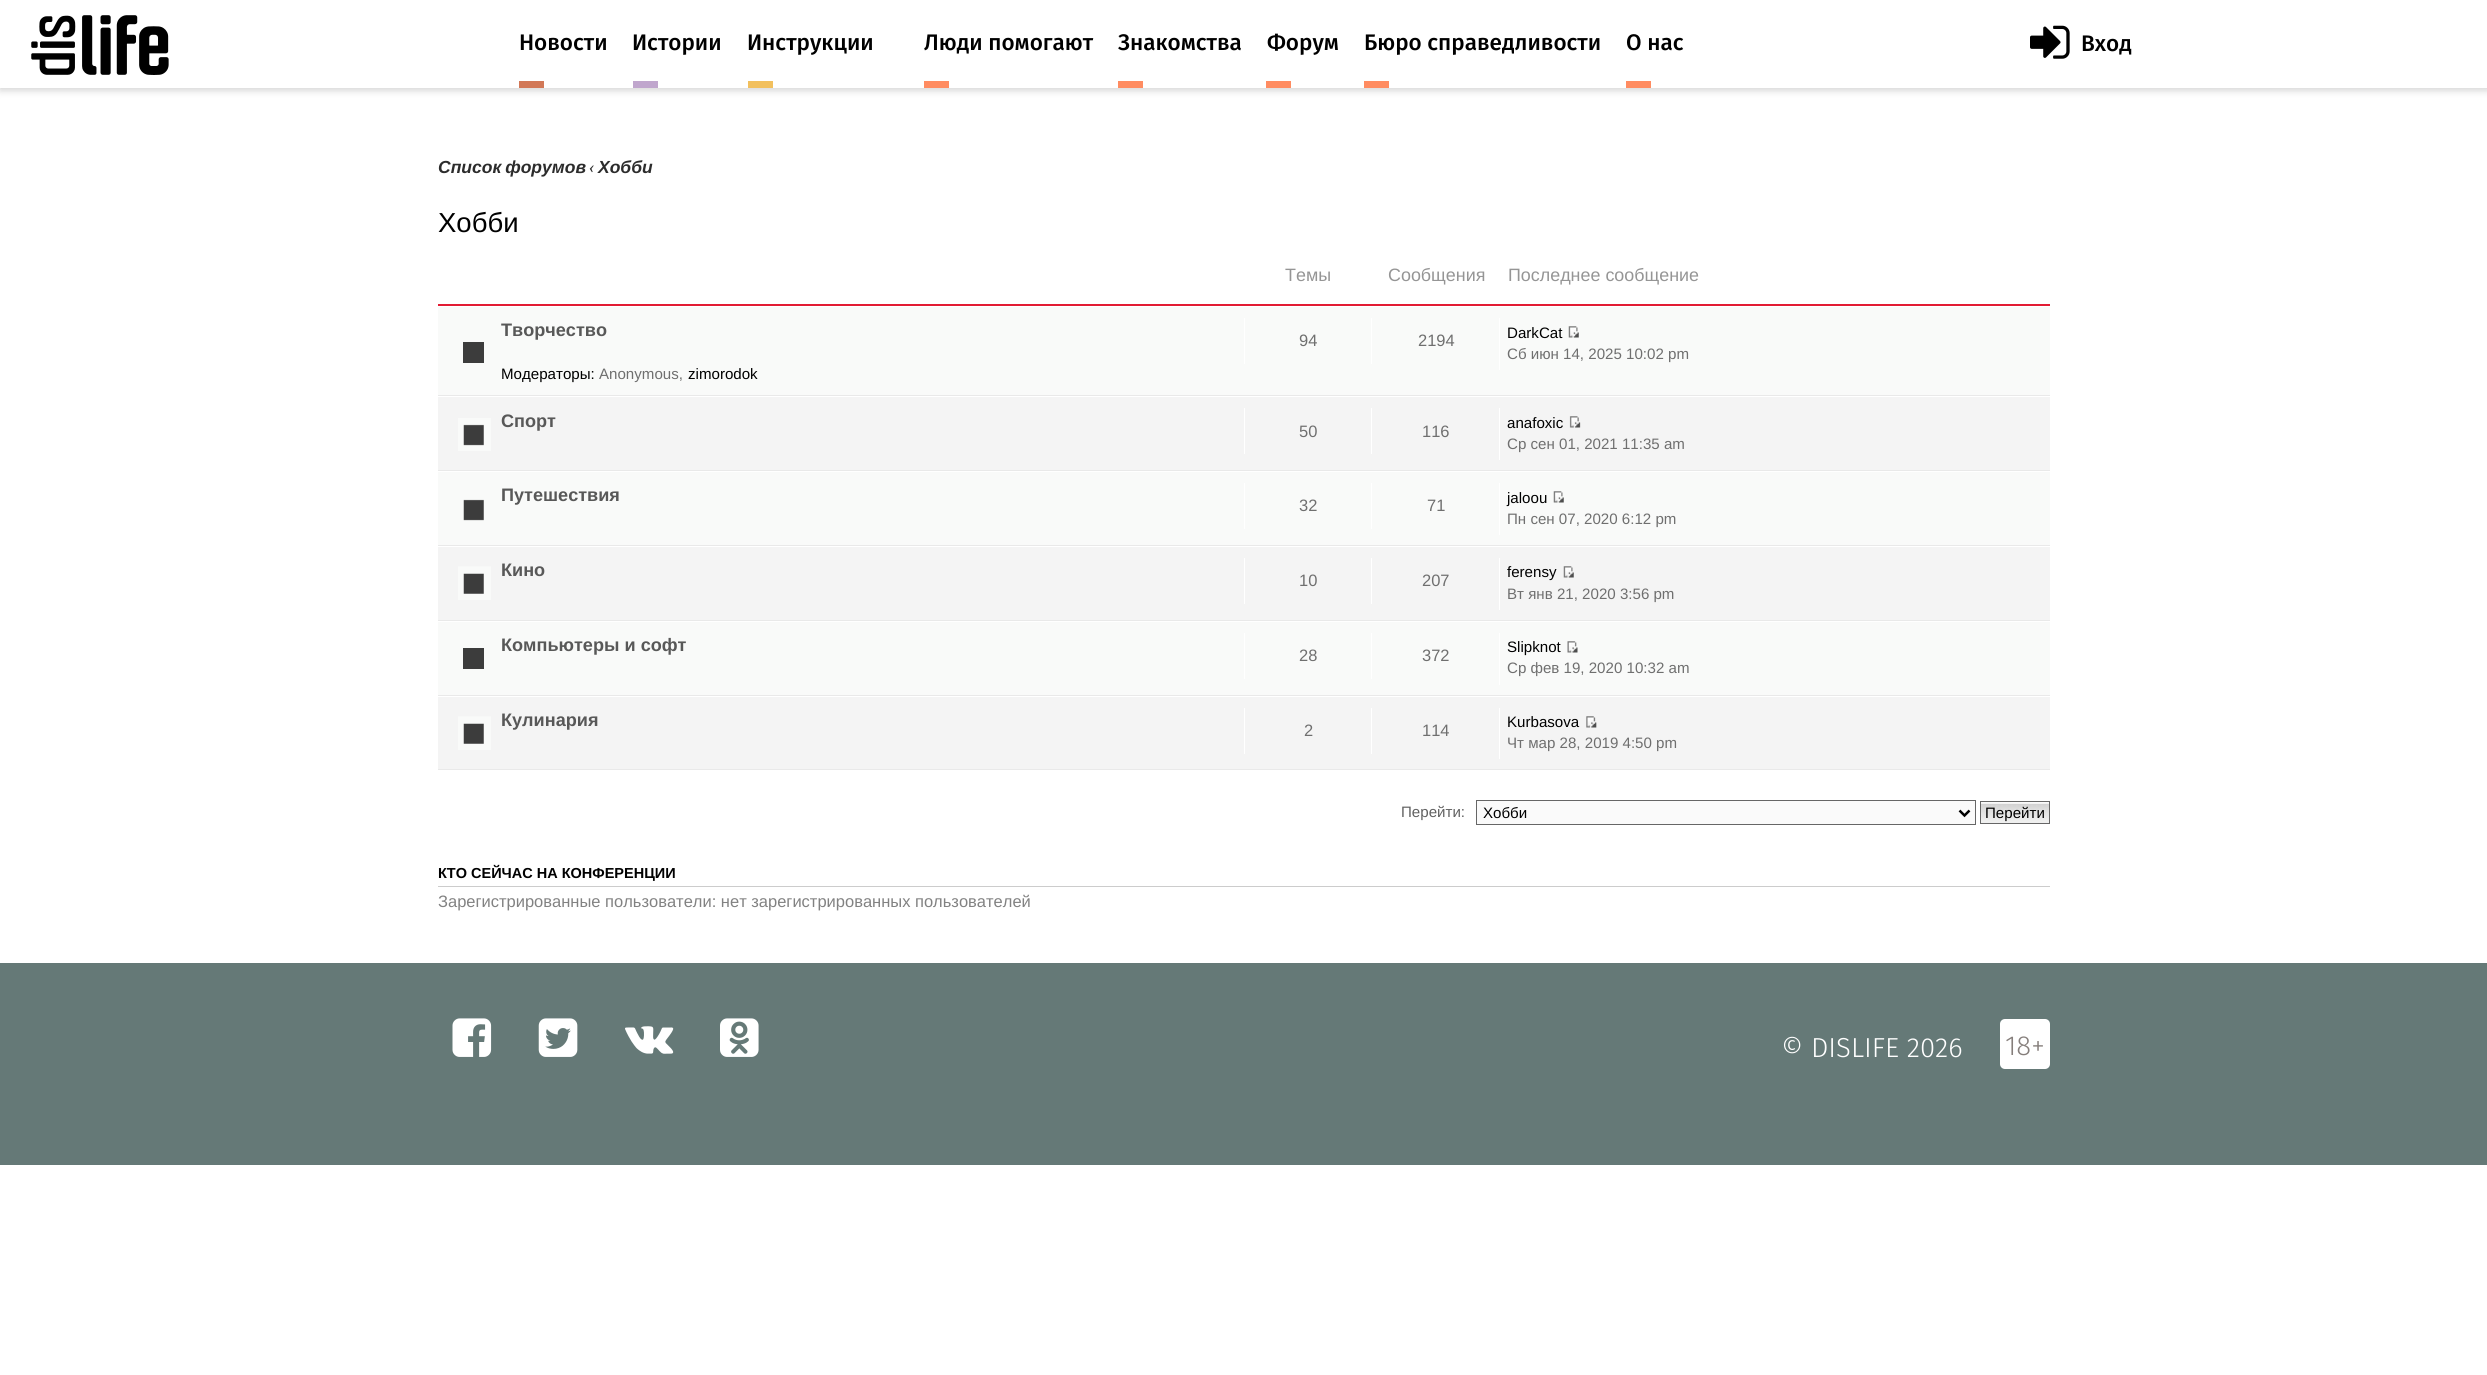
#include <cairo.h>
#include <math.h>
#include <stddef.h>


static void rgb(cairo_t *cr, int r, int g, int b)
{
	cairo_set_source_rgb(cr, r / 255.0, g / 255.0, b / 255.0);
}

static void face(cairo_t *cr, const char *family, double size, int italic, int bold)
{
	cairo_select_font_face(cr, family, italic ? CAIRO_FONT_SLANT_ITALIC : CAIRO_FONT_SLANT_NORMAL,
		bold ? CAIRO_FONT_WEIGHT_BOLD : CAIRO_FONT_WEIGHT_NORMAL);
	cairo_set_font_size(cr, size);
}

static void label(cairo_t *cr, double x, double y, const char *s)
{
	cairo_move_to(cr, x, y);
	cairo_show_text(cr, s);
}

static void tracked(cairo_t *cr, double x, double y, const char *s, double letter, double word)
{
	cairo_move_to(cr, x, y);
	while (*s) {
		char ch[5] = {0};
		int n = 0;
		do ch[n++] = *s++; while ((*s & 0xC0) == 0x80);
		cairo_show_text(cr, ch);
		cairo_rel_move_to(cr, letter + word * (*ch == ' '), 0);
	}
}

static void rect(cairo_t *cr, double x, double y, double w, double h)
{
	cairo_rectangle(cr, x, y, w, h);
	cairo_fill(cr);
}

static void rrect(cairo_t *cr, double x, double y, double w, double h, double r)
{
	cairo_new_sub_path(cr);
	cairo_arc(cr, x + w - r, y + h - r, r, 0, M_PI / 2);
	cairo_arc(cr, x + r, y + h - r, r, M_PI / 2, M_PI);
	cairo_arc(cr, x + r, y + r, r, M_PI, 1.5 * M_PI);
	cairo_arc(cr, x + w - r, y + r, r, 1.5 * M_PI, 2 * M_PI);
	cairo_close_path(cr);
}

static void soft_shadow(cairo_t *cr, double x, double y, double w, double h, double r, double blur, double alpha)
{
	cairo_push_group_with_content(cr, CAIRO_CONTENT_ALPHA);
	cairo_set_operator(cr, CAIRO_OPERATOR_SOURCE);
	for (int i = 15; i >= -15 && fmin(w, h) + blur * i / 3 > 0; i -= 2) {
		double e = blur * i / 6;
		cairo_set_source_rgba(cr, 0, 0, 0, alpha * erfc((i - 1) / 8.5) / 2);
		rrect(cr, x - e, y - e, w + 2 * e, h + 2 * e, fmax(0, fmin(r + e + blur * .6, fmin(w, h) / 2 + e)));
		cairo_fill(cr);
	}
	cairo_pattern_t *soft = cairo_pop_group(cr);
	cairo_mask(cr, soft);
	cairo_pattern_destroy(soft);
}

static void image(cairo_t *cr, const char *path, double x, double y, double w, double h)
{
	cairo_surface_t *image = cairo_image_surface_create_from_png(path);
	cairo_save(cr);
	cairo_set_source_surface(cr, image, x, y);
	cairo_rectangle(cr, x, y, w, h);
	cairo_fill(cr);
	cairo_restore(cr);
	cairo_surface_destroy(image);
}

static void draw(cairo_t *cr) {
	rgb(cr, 255, 255, 255);
	cairo_paint(cr);
	rgb(cr, 159, 159, 159);
	soft_shadow(cr, 0, 3, 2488, 87, 0, 4, 0.5);
	rgb(cr, 255, 255, 255);
	rect(cr, 0, 0, 2487, 88);
	image(cr, "image0.png", 31, 15, 138, 60);
	face(cr, "Fira Sans Medium", 22.5, 0, 0);
	rgb(cr, 0, 0, 0);
	label(cr, 519, 50, "Новости");
	rgb(cr, 210, 120, 87);
	rect(cr, 519, 81, 25, 7);
	rgb(cr, 0, 0, 0);
	label(cr, 632, 50, "Истории");
	rgb(cr, 192, 166, 205);
	rect(cr, 633, 81, 25, 7);
	rgb(cr, 0, 0, 0);
	label(cr, 747, 50, "Инструкции");
	rgb(cr, 242, 192, 94);
	rect(cr, 748, 81, 25, 7);
	rgb(cr, 0, 0, 0);
	label(cr, 924, 50, "Люди помогают");
	rgb(cr, 255, 140, 97);
	rect(cr, 924, 81, 25, 7);
	rgb(cr, 0, 0, 0);
	label(cr, 1118, 50, "Знакомства");
	rgb(cr, 255, 140, 97);
	rect(cr, 1118, 81, 25, 7);
	rgb(cr, 0, 0, 0);
	label(cr, 1267, 50, "Форум");
	rgb(cr, 255, 140, 97);
	rect(cr, 1266, 81, 25, 7);
	rgb(cr, 0, 0, 0);
	label(cr, 1364, 50, "Бюро справедливости");
	rgb(cr, 255, 140, 97);
	rect(cr, 1364, 81, 25, 7);
	rgb(cr, 0, 0, 0);
	label(cr, 1626, 50, "О нас");
	rgb(cr, 255, 140, 97);
	rect(cr, 1626, 81, 25, 7);
	image(cr, "image1.png", 2030, 25, 40, 34);
	rgb(cr, 0, 0, 0);
	label(cr, 2081, 51, "Вход");
	face(cr, "Liberation Sans", 17.5, 1, 1);
	rgb(cr, 44, 44, 44);
	tracked(cr, 438, 173, "Список форумов", 0, -1);
	face(cr, "Caladea", 17.5, 1, 0);
	label(cr, 589, 173, "‹");
	face(cr, "Liberation Sans", 17.5, 1, 1);
	label(cr, 598, 173, "Хобби");
	face(cr, "Liberation Sans", 27.5, 0, 0);
	rgb(cr, 0, 0, 0);
	label(cr, 438, 232, "Хобби");
	rgb(cr, 226, 27, 51);
	rect(cr, 438, 304, 1612, 2);
	face(cr, "Liberation Sans", 17.9, 0, 0);
	rgb(cr, 149, 149, 149);
	label(cr, 1285, 281, "Темы");
	label(cr, 1388, 281, "Сообщения");
	label(cr, 1508, 281, "Последнее сообщение");
	rgb(cr, 249, 250, 249);
	rect(cr, 438, 307, 1612, 88);
	rgb(cr, 233, 233, 233);
	rect(cr, 438, 395, 1612, 1);
	rgb(cr, 60, 60, 60);
	rect(cr, 463, 342, 21, 21);
	face(cr, "Liberation Sans", 18.1, 0, 1);
	rgb(cr, 88, 88, 88);
	label(cr, 501, 336, "Творчество");
	face(cr, "Liberation Sans", 15.1, 0, 0);
	rgb(cr, 0, 0, 0);
	label(cr, 501, 379, "Модераторы:");
	rgb(cr, 111, 111, 111);
	label(cr, 599, 379, "Anonymous,");
	rgb(cr, 0, 0, 0);
	label(cr, 688, 379, "zimorodok");
	rgb(cr, 255, 255, 255);
	rect(cr, 1244, 318, 1, 46);
	face(cr, "Liberation Sans", 16.5, 0, 0);
	rgb(cr, 111, 111, 111);
	label(cr, 1299, 346, "94");
	rgb(cr, 255, 255, 255);
	rect(cr, 1371, 318, 1, 46);
	rgb(cr, 111, 111, 111);
	label(cr, 1418, 346, "2194");
	rgb(cr, 255, 255, 255);
	rect(cr, 1499, 318, 1, 52);
	face(cr, "Liberation Sans", 15.1, 0, 0);
	rgb(cr, 0, 0, 0);
	label(cr, 1507, 338, "DarkCat");
	image(cr, "image2.png", 1568, 326, 11, 12);
	rgb(cr, 111, 111, 111);
	label(cr, 1507, 359, "Сб июн 14, 2025 10:02 pm");
	rgb(cr, 244, 244, 244);
	rect(cr, 438, 397, 1612, 73);
	rgb(cr, 233, 233, 233);
	rect(cr, 438, 470, 1612, 1);
	image(cr, "image3.png", 458, 418, 33, 33);
	face(cr, "Liberation Sans", 18.1, 0, 1);
	rgb(cr, 88, 88, 88);
	label(cr, 501, 427, "Спорт");
	rgb(cr, 255, 255, 255);
	rect(cr, 1244, 408, 1, 46);
	face(cr, "Liberation Sans", 16.5, 0, 0);
	rgb(cr, 111, 111, 111);
	label(cr, 1299, 437, "50");
	rgb(cr, 255, 255, 255);
	rect(cr, 1371, 408, 1, 46);
	rgb(cr, 111, 111, 111);
	label(cr, 1422, 437, "116");
	rgb(cr, 255, 255, 255);
	rect(cr, 1499, 408, 1, 52);
	face(cr, "Liberation Sans", 15.1, 0, 0);
	rgb(cr, 0, 0, 0);
	label(cr, 1507, 428, "anafoxic");
	image(cr, "image4.png", 1569, 416, 12, 12);
	rgb(cr, 111, 111, 111);
	label(cr, 1507, 449, "Ср сен 01, 2021 11:35 am");
	rgb(cr, 249, 250, 249);
	rect(cr, 438, 472, 1612, 73);
	rgb(cr, 233, 233, 233);
	rect(cr, 438, 545, 1612, 1);
	image(cr, "image5.png", 463, 499, 21, 22);
	face(cr, "Liberation Sans", 18.1, 0, 1);
	rgb(cr, 88, 88, 88);
	label(cr, 501, 501, "Путешествия");
	rgb(cr, 255, 255, 255);
	rect(cr, 1244, 483, 1, 46);
	face(cr, "Liberation Sans", 16.5, 0, 0);
	rgb(cr, 111, 111, 111);
	label(cr, 1299, 511, "32");
	rgb(cr, 255, 255, 255);
	rect(cr, 1371, 483, 1, 46);
	rgb(cr, 111, 111, 111);
	label(cr, 1427, 511, "71");
	rgb(cr, 255, 255, 255);
	rect(cr, 1499, 483, 1, 52);
	face(cr, "Liberation Sans", 15.1, 0, 0);
	rgb(cr, 0, 0, 0);
	label(cr, 1507, 503, "jaloou");
	image(cr, "image2.png", 1553, 491, 11, 12);
	rgb(cr, 111, 111, 111);
	label(cr, 1507, 524, "Пн сен 07, 2020 6:12 pm");
	rgb(cr, 244, 244, 244);
	rect(cr, 438, 547, 1612, 73);
	rgb(cr, 233, 233, 233);
	rect(cr, 438, 620, 1612, 1);
	image(cr, "image6.png", 458, 566, 33, 34);
	face(cr, "Liberation Sans", 18.1, 0, 1);
	rgb(cr, 88, 88, 88);
	label(cr, 501, 576, "Кино");
	rgb(cr, 255, 255, 255);
	rect(cr, 1244, 558, 1, 46);
	face(cr, "Liberation Sans", 16.5, 0, 0);
	rgb(cr, 111, 111, 111);
	label(cr, 1299, 586, "10");
	rgb(cr, 255, 255, 255);
	rect(cr, 1371, 558, 1, 46);
	rgb(cr, 111, 111, 111);
	label(cr, 1422, 586, "207");
	rgb(cr, 255, 255, 255);
	rect(cr, 1499, 558, 1, 52);
	face(cr, "Liberation Sans", 15.1, 0, 0);
	rgb(cr, 0, 0, 0);
	label(cr, 1507, 577, "ferensy");
	image(cr, "image7.png", 1563, 566, 11, 12);
	rgb(cr, 111, 111, 111);
	label(cr, 1507, 599, "Вт янв 21, 2020 3:56 pm");
	rgb(cr, 249, 250, 249);
	rect(cr, 438, 622, 1612, 73);
	rgb(cr, 233, 233, 233);
	rect(cr, 438, 695, 1612, 1);
	rgb(cr, 60, 60, 60);
	rect(cr, 463, 648, 21, 21);
	face(cr, "Liberation Sans", 18.1, 0, 1);
	rgb(cr, 88, 88, 88);
	label(cr, 501, 651, "Компьютеры и софт");
	rgb(cr, 255, 255, 255);
	rect(cr, 1244, 633, 1, 46);
	face(cr, "Liberation Sans", 16.5, 0, 0);
	rgb(cr, 111, 111, 111);
	label(cr, 1299, 661, "28");
	rgb(cr, 255, 255, 255);
	rect(cr, 1371, 633, 1, 46);
	rgb(cr, 111, 111, 111);
	label(cr, 1422, 661, "372");
	rgb(cr, 255, 255, 255);
	rect(cr, 1499, 633, 1, 52);
	face(cr, "Liberation Sans", 15.1, 0, 0);
	rgb(cr, 0, 0, 0);
	label(cr, 1507, 652, "Slipknot");
	image(cr, "image8.png", 1567, 641, 11, 12);
	rgb(cr, 111, 111, 111);
	label(cr, 1507, 673, "Ср фев 19, 2020 10:32 am");
	rgb(cr, 244, 244, 244);
	rect(cr, 438, 697, 1612, 72);
	rgb(cr, 233, 233, 233);
	rect(cr, 438, 769, 1612, 1);
	image(cr, "image6.png", 458, 716, 33, 34);
	face(cr, "Liberation Sans", 18.1, 0, 1);
	rgb(cr, 88, 88, 88);
	label(cr, 501, 726, "Кулинария");
	rgb(cr, 255, 255, 255);
	rect(cr, 1244, 708, 1, 46);
	face(cr, "Liberation Sans", 16.5, 0, 0);
	rgb(cr, 111, 111, 111);
	label(cr, 1304, 736, "2");
	rgb(cr, 255, 255, 255);
	rect(cr, 1371, 708, 1, 46);
	rgb(cr, 111, 111, 111);
	label(cr, 1422, 736, "114");
	rgb(cr, 255, 255, 255);
	rect(cr, 1499, 708, 1, 51);
	face(cr, "Liberation Sans", 15.1, 0, 0);
	rgb(cr, 0, 0, 0);
	label(cr, 1507, 727, "Kurbasova");
	image(cr, "image9.png", 1586, 716, 11, 12);
	rgb(cr, 111, 111, 111);
	label(cr, 1507, 748, "Чт мар 28, 2019 4:50 pm");
	rgb(cr, 97, 97, 97);
	label(cr, 1401, 817, "Перейти:");
	rgb(cr, 250, 250, 250);
	cairo_rectangle(cr, 1476.5, 800.5, 499, 24);
	cairo_fill_preserve(cr);
	rgb(cr, 102, 102, 102);
	cairo_set_line_width(cr, 1);
	cairo_stroke(cr);
	cairo_new_path(cr);
	cairo_move_to(cr, 1959.5, 810.5);
	cairo_line_to(cr, 1964.5, 815.5);
	cairo_line_to(cr, 1969.5, 810.5);
	rgb(cr, 0, 0, 0);
	cairo_set_line_width(cr, 2.5);
	cairo_stroke(cr);
	label(cr, 1483, 818, "Хобби");
	rgb(cr, 250, 250, 250);
	rect(cr, 1981, 802, 68, 1);
	image(cr, "image10.png", 1981, 803, 68, 20);
	cairo_rectangle(cr, 1980.5, 801.5, 69, 22);
	rgb(cr, 102, 102, 102);
	cairo_set_line_width(cr, 1);
	cairo_stroke(cr);
	rgb(cr, 0, 0, 0);
	label(cr, 1985, 818, "Перейти");
	rgb(cr, 204, 204, 204);
	rect(cr, 438, 886, 1612, 1);
	face(cr, "Liberation Sans", 14.5, 0, 1);
	rgb(cr, 0, 0, 0);
	label(cr, 438, 878, "КТО СЕЙЧАС НА КОНФЕРЕНЦИИ");
	face(cr, "Liberation Sans", 16.5, 0, 0);
	rgb(cr, 130, 130, 130);
	label(cr, 438, 907, "Зарегистрированные пользователи: нет зарегистрированных пользователей");
	rgb(cr, 101, 121, 119);
	rect(cr, 0, 963, 2487, 202);
	image(cr, "image11.png", 452, 1018, 40, 39);
	image(cr, "image12.png", 538, 1018, 40, 39);
	image(cr, "image13.png", 625, 1026, 49, 28);
	image(cr, "image14.png", 720, 1018, 39, 39);
	face(cr, "Fira Sans Light", 27.5, 0, 0);
	rgb(cr, 255, 255, 255);
	label(cr, 1781, 1057, "© DISLIFE 2026");
	rrect(cr, 2000, 1019, 50, 50, 5);
	cairo_fill(cr);
	rgb(cr, 133, 126, 123);
	label(cr, 2005, 1055, "18+");
}

int main(void) {
	cairo_surface_t *surface = cairo_image_surface_create(CAIRO_FORMAT_RGB24, 2487, 1375);
	cairo_t *cr = cairo_create(surface);
	cairo_font_options_t *options = cairo_font_options_create();
	cairo_font_options_set_hint_metrics(options, CAIRO_HINT_METRICS_OFF);
	cairo_font_options_set_hint_style(options, CAIRO_HINT_STYLE_NONE);
	cairo_set_font_options(cr, options);
	cairo_set_miter_limit(cr, 4);
	draw(cr);
	cairo_surface_write_to_png(surface, "render.png");
	cairo_font_options_destroy(options);
	cairo_destroy(cr);
	cairo_surface_destroy(surface);
	return 0;
}
